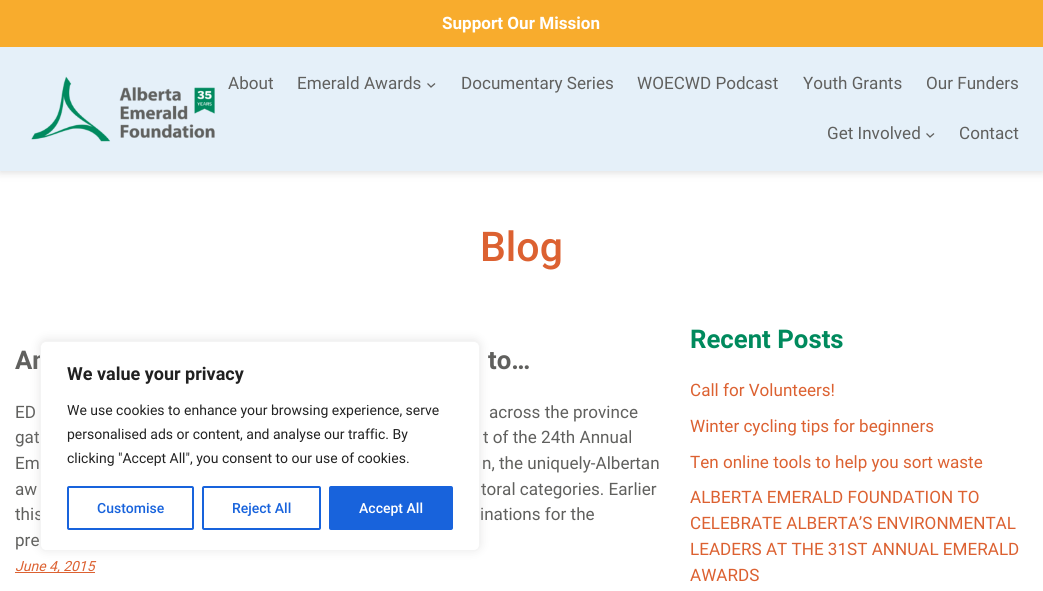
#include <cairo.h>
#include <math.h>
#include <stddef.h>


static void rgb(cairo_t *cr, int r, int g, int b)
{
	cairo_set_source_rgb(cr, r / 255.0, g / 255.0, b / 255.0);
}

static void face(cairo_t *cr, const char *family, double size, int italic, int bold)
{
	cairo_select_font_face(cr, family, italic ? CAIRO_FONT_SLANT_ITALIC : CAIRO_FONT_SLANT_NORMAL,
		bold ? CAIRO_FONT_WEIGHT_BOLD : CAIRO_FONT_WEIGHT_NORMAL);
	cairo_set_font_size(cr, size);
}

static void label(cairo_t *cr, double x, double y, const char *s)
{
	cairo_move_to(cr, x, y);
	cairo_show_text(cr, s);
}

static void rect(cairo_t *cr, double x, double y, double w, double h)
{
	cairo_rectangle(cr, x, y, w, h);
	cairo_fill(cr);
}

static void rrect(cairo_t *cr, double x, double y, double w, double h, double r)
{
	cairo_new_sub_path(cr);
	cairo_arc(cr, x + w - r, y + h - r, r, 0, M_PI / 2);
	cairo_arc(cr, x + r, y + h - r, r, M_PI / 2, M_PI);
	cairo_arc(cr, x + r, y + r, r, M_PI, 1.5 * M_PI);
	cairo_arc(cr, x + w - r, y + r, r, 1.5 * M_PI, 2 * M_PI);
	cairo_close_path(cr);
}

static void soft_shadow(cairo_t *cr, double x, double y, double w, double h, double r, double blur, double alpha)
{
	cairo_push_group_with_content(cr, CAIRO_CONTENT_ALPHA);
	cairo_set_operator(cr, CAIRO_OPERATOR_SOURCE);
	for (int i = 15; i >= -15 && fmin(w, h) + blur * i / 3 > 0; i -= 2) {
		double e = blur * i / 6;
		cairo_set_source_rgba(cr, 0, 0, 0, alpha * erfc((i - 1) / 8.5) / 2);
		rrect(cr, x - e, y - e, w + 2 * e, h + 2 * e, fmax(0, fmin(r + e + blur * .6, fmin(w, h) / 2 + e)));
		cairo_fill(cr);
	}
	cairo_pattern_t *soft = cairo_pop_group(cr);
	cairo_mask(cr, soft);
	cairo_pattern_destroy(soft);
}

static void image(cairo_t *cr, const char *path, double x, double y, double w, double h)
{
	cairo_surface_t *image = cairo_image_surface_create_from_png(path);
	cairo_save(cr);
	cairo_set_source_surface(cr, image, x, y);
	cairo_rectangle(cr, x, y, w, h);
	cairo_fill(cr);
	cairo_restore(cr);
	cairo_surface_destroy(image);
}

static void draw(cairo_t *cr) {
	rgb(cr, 255, 255, 255);
	cairo_paint(cr);
	rgb(cr, 99, 99, 99);
	soft_shadow(cr, 0, 2, 1043, 171, 0, 4, 0.2);
	rgb(cr, 248, 172, 45);
	rect(cr, 0, 0, 1043, 47);
	face(cr, "Roboto", 17.1, 0, 1);
	rgb(cr, 255, 255, 255);
	label(cr, 442, 29, "Support Our Mission");
	rgb(cr, 229, 240, 249);
	rect(cr, 0, 47, 1043, 124);
	image(cr, "image0.png", 31, 76, 184, 66);
	face(cr, "Roboto", 17.1, 0, 0);
	rgb(cr, 96, 96, 94);
	label(cr, 228, 89, "About");
	label(cr, 297, 89, "Emerald Awards");
	cairo_new_path(cr);
	cairo_move_to(cr, 427.5, 83.5);
	cairo_line_to(cr, 431, 87);
	cairo_line_to(cr, 435, 83.5);
	cairo_set_line_width(cr, 1.3);
	cairo_stroke(cr);
	label(cr, 461, 89, "Documentary Series");
	label(cr, 637, 89, "WOECWD Podcast");
	label(cr, 803, 89, "Youth Grants");
	label(cr, 926, 89, "Our Funders");
	label(cr, 827, 139, "Get Involved");
	cairo_new_path(cr);
	cairo_move_to(cr, 926.5, 133.5);
	cairo_line_to(cr, 930, 137);
	cairo_line_to(cr, 934, 133.5);
	cairo_stroke(cr);
	label(cr, 959, 139, "Contact");
	face(cr, "Roboto Medium", 41, 0, 0);
	rgb(cr, 220, 97, 49);
	label(cr, 480, 261, "Blog");
	face(cr, "Roboto", 25.75, 0, 1);
	rgb(cr, 96, 96, 94);
	label(cr, 15, 369, "An");
	label(cr, 488, 369, "to…");
	face(cr, "Roboto", 17.1, 0, 0);
	label(cr, 15, 418, "ED");
	label(cr, 489, 418, "across the province");
	label(cr, 15, 443, "gat");
	label(cr, 483, 443, "t of the 24th Annual");
	label(cr, 15, 469, "Em");
	label(cr, 482, 469, "n, the uniquely-Albertan");
	label(cr, 15, 495, "aw");
	label(cr, 481, 495, "toral categories. Earlier");
	label(cr, 15, 520, "this");
	label(cr, 480, 520, "inations for the");
	label(cr, 15, 546, "pre");
	rgb(cr, 220, 97, 49);
	rect(cr, 15, 572, 80, 1);
	face(cr, "Roboto", 14, 1, 0);
	label(cr, 15, 571, "June 4, 2015");
	face(cr, "Roboto", 25.75, 0, 1);
	rgb(cr, 0, 138, 93);
	label(cr, 690, 348, "Recent Posts");
	face(cr, "Roboto", 17.1, 0, 0);
	rgb(cr, 220, 97, 49);
	label(cr, 690, 396, "Call for Volunteers!");
	label(cr, 690, 432, "Winter cycling tips for beginners");
	label(cr, 690, 468, "Ten online tools to help you sort waste");
	label(cr, 690, 503, "ALBERTA EMERALD FOUNDATION TO");
	label(cr, 690, 529, "CELEBRATE ALBERTA’S ENVIRONMENTAL");
	label(cr, 690, 555, "LEADERS AT THE 31ST ANNUAL EMERALD");
	label(cr, 690, 581, "AWARDS");
	rgb(cr, 172, 171, 171);
	soft_shadow(cr, 40, 340, 440, 210, 6, 5, 0.3);
	rgb(cr, 255, 255, 255);
	rrect(cr, 40.5, 341.5, 439, 209, 5.5);
	cairo_fill_preserve(cr);
	rgb(cr, 244, 244, 244);
	cairo_set_line_width(cr, 1);
	cairo_stroke(cr);
	face(cr, "Roboto", 18, 0, 1);
	rgb(cr, 33, 33, 33);
	label(cr, 67, 380, "We value your privacy");
	face(cr, "Roboto", 14, 0, 0);
	label(cr, 67, 415, "We use cookies to enhance your browsing experience, serve");
	label(cr, 67, 439, "personalised ads or content, and analyse our traffic. By");
	label(cr, 67, 463, "clicking \"Accept All\", you consent to our use of cookies.");
	rrect(cr, 68, 487, 125, 42, 1);
	rgb(cr, 24, 99, 220);
	cairo_set_line_width(cr, 2);
	cairo_stroke(cr);
	face(cr, "Roboto Medium", 14, 0, 0);
	label(cr, 97, 513, "Customise");
	rrect(cr, 203, 487, 117, 42, 1);
	cairo_stroke(cr);
	label(cr, 232, 513, "Reject All");
	rrect(cr, 330, 487, 122, 42, 1);
	cairo_fill_preserve(cr);
	cairo_stroke(cr);
	rgb(cr, 255, 255, 255);
	label(cr, 359, 513, "Accept All");
}

int main(void) {
	cairo_surface_t *surface = cairo_image_surface_create(CAIRO_FORMAT_RGB24, 1043, 591);
	cairo_t *cr = cairo_create(surface);
	cairo_font_options_t *options = cairo_font_options_create();
	cairo_font_options_set_hint_metrics(options, CAIRO_HINT_METRICS_OFF);
	cairo_font_options_set_hint_style(options, CAIRO_HINT_STYLE_NONE);
	cairo_set_font_options(cr, options);
	cairo_set_miter_limit(cr, 4);
	draw(cr);
	cairo_surface_write_to_png(surface, "render.png");
	cairo_font_options_destroy(options);
	cairo_destroy(cr);
	cairo_surface_destroy(surface);
	return 0;
}
